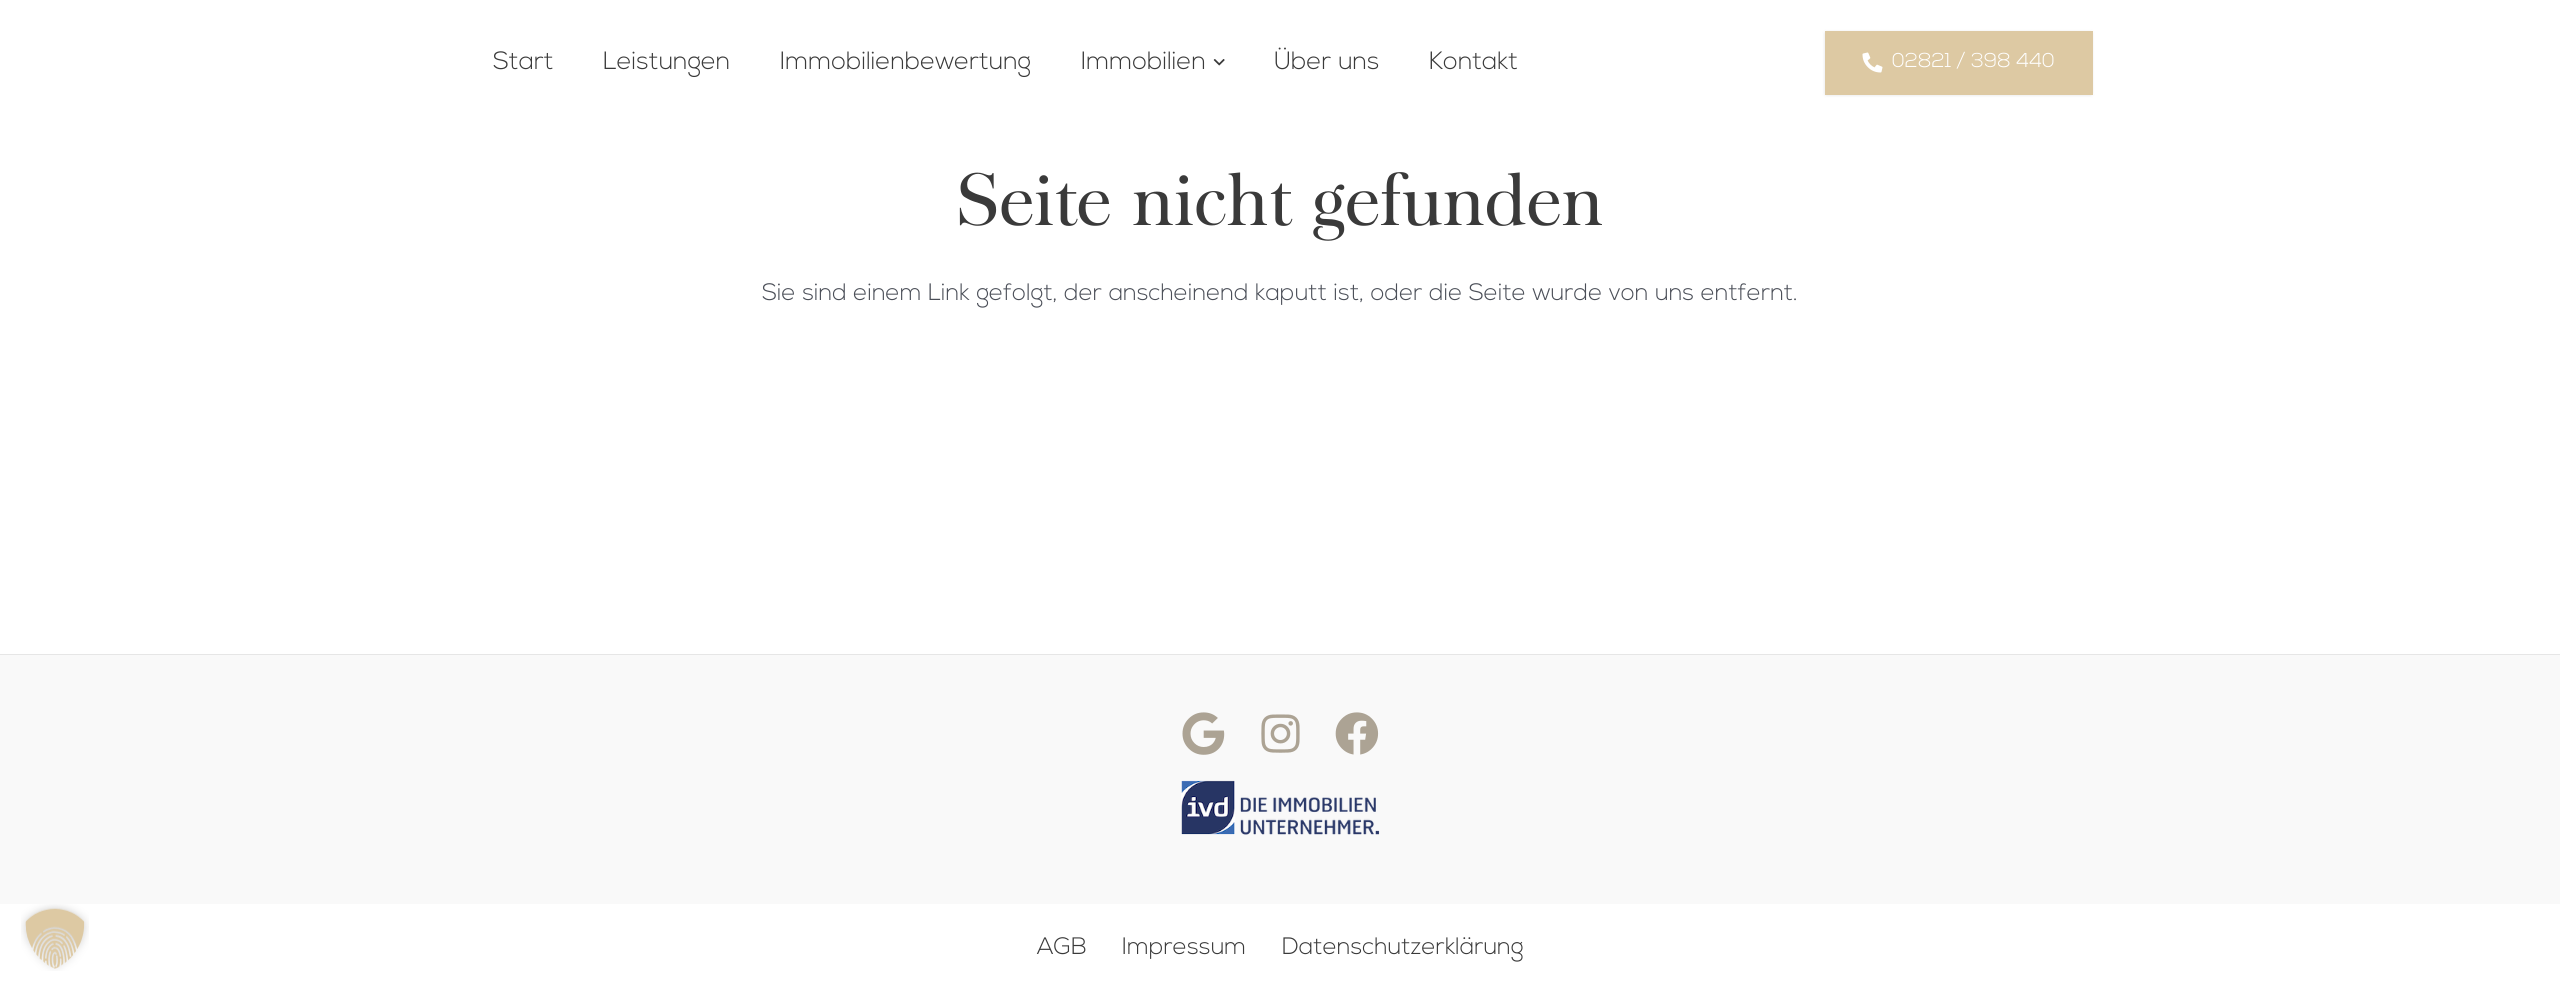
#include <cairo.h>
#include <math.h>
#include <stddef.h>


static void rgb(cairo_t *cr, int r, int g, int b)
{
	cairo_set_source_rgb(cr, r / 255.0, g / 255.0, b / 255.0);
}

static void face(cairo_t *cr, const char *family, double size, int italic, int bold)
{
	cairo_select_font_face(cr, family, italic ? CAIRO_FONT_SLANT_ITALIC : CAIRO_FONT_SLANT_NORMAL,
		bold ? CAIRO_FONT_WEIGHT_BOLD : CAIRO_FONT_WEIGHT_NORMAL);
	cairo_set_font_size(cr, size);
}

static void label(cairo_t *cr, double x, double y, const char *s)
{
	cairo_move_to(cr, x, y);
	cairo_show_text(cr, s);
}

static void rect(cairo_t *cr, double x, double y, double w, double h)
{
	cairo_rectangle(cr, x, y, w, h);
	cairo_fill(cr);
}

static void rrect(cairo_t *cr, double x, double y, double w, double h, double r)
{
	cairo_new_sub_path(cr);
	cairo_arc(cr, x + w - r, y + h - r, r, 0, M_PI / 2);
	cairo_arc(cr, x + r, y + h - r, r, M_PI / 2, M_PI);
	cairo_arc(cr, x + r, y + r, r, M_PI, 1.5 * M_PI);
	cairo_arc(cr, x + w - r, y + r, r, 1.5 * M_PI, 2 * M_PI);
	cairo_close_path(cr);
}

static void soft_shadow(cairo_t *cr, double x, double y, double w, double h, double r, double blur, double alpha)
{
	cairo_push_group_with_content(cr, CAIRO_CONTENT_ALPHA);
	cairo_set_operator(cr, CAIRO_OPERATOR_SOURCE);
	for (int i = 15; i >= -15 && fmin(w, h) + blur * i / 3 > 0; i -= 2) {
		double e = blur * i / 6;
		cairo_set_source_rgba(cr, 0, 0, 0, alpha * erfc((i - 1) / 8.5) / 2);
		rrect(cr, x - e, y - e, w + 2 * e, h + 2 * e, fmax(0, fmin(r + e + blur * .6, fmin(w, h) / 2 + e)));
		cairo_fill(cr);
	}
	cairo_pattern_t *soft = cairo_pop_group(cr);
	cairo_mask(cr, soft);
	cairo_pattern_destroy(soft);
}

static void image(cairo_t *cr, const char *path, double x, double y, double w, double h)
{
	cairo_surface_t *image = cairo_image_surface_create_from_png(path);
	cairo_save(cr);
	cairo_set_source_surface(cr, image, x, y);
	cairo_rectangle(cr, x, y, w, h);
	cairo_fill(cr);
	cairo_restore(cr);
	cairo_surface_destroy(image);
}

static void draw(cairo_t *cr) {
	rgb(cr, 255, 255, 255);
	cairo_paint(cr);
	face(cr, "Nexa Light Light", 25, 0, 0);
	rgb(cr, 58, 58, 58);
	label(cr, 493, 69, "Start");
	label(cr, 603, 69, "Leistungen");
	label(cr, 780, 69, "Immobilienbewertung");
	label(cr, 1081, 69, "Immobilien");
	image(cr, "image0.png", 1213, 59, 12, 7);
	label(cr, 1274, 69, "Über uns");
	label(cr, 1429, 69, "Kontakt");
	rgb(cr, 0, 0, 0);
	soft_shadow(cr, 1826, 33, 265, 61, 0, 2, 0.2);
	rgb(cr, 221, 201, 163);
	rect(cr, 1825, 31, 268, 64);
	image(cr, "image1.png", 1862, 52, 21, 21);
	face(cr, "Nexa Light Light", 20, 0, 0);
	rgb(cr, 255, 255, 255);
	label(cr, 1892, 67, "02821 / 398 440");
	face(cr, "Baskerville", 71.25, 0, 0);
	rgb(cr, 58, 58, 58);
	label(cr, 957, 225, "Seite nicht gefunden");
	face(cr, "Nexa Light Light", 23.75, 0, 0);
	rgb(cr, 75, 79, 88);
	label(cr, 762, 300, "Sie sind einem Link gefolgt, der anscheinend kaputt ist, oder die Seite wurde von uns entfernt.");
	image(cr, "image2.png", 21, 904, 68, 67);
	rgb(cr, 230, 230, 230);
	rect(cr, 0, 654, 2560, 1);
	rgb(cr, 249, 249, 249);
	rect(cr, 0, 655, 2560, 249);
	image(cr, "image3.png", 1182, 712, 43, 43);
	image(cr, "image4.png", 1261, 714, 39, 39);
	image(cr, "image5.png", 1335, 712, 44, 43);
	image(cr, "image6.png", 1181, 780, 199, 55);
	rgb(cr, 58, 58, 58);
	label(cr, 1037, 954, "AGB");
	label(cr, 1122, 954, "Impressum");
	label(cr, 1282, 954, "Datenschutzerklärung");
}

int main(void) {
	cairo_surface_t *surface = cairo_image_surface_create(CAIRO_FORMAT_RGB24, 2560, 993);
	cairo_t *cr = cairo_create(surface);
	cairo_font_options_t *options = cairo_font_options_create();
	cairo_font_options_set_hint_metrics(options, CAIRO_HINT_METRICS_OFF);
	cairo_font_options_set_hint_style(options, CAIRO_HINT_STYLE_NONE);
	cairo_set_font_options(cr, options);
	cairo_set_miter_limit(cr, 4);
	draw(cr);
	cairo_surface_write_to_png(surface, "render.png");
	cairo_font_options_destroy(options);
	cairo_destroy(cr);
	cairo_surface_destroy(surface);
	return 0;
}
